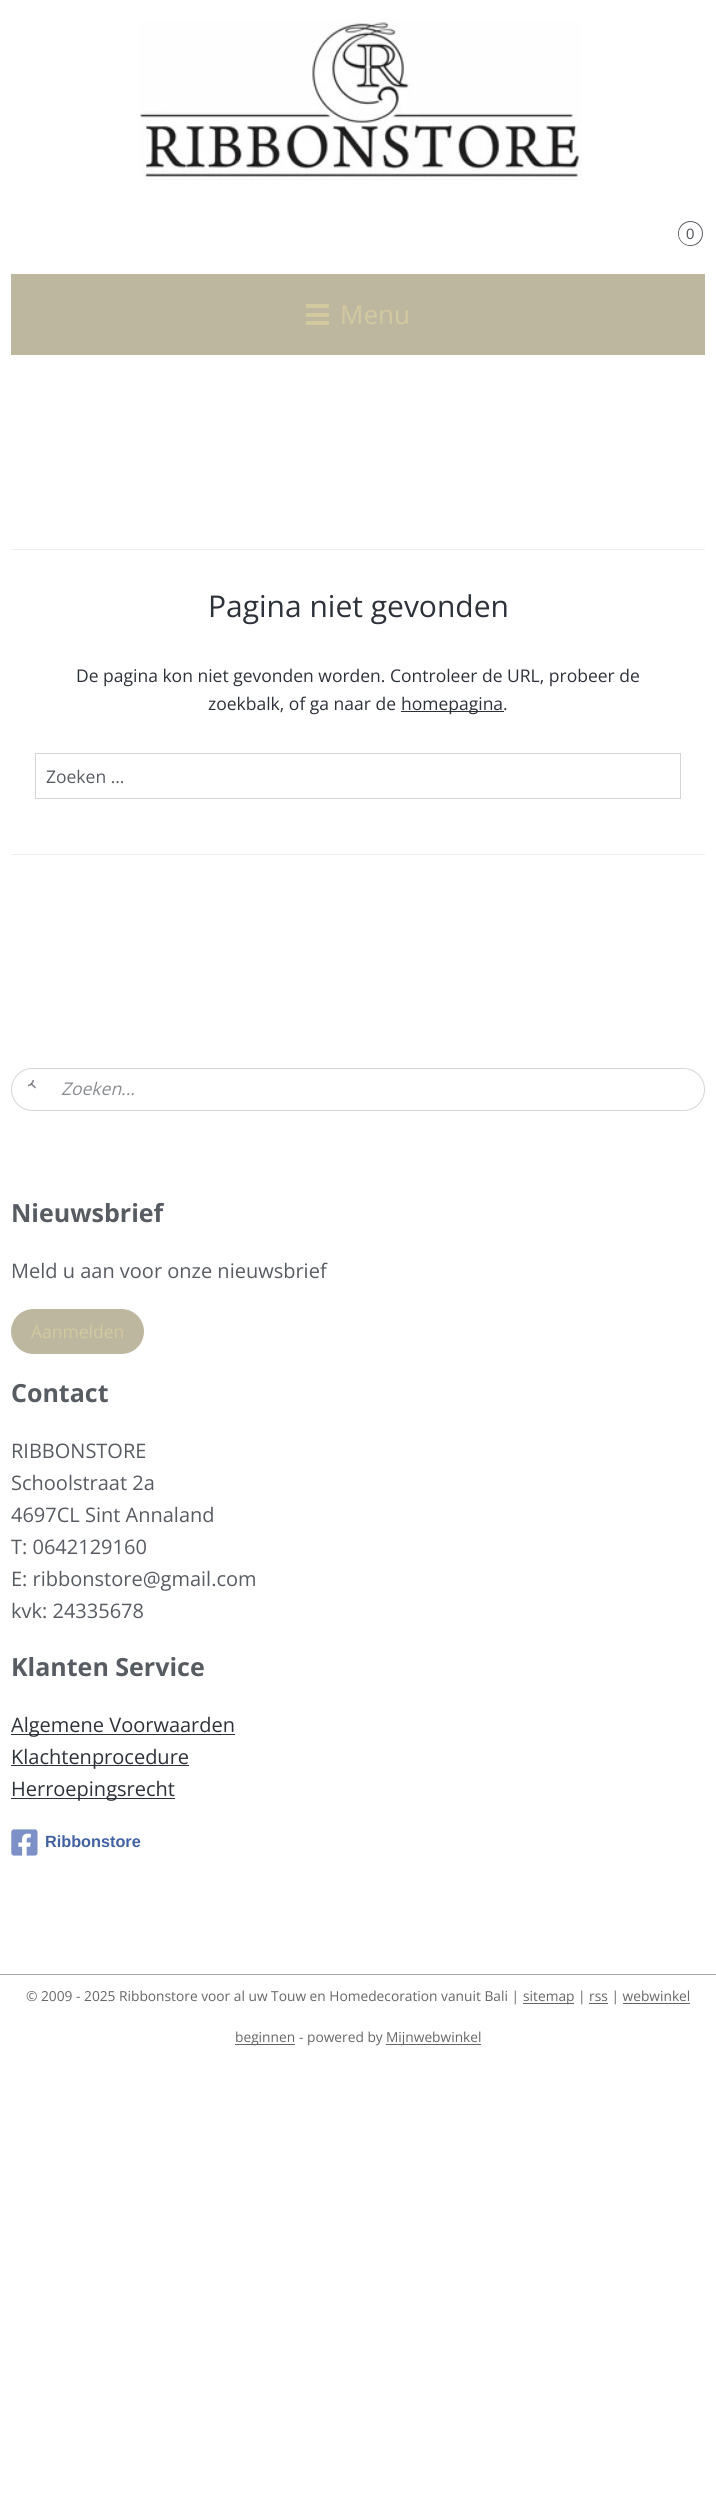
#include <cairo.h>
#include <math.h>
#include <stddef.h>


static void rgb(cairo_t *cr, int r, int g, int b)
{
	cairo_set_source_rgb(cr, r / 255.0, g / 255.0, b / 255.0);
}

static void face(cairo_t *cr, const char *family, double size, int italic, int bold)
{
	cairo_select_font_face(cr, family, italic ? CAIRO_FONT_SLANT_ITALIC : CAIRO_FONT_SLANT_NORMAL,
		bold ? CAIRO_FONT_WEIGHT_BOLD : CAIRO_FONT_WEIGHT_NORMAL);
	cairo_set_font_size(cr, size);
}

static void label(cairo_t *cr, double x, double y, const char *s)
{
	cairo_move_to(cr, x, y);
	cairo_show_text(cr, s);
}

static void rect(cairo_t *cr, double x, double y, double w, double h)
{
	cairo_rectangle(cr, x, y, w, h);
	cairo_fill(cr);
}

static void rrect(cairo_t *cr, double x, double y, double w, double h, double r)
{
	cairo_new_sub_path(cr);
	cairo_arc(cr, x + w - r, y + h - r, r, 0, M_PI / 2);
	cairo_arc(cr, x + r, y + h - r, r, M_PI / 2, M_PI);
	cairo_arc(cr, x + r, y + r, r, M_PI, 1.5 * M_PI);
	cairo_arc(cr, x + w - r, y + r, r, 1.5 * M_PI, 2 * M_PI);
	cairo_close_path(cr);
}

static void image(cairo_t *cr, const char *path, double x, double y, double w, double h)
{
	cairo_surface_t *image = cairo_image_surface_create_from_png(path);
	cairo_save(cr);
	cairo_set_source_surface(cr, image, x, y);
	cairo_rectangle(cr, x, y, w, h);
	cairo_fill(cr);
	cairo_restore(cr);
	cairo_surface_destroy(image);
}

static void draw(cairo_t *cr) {
	rgb(cr, 255, 255, 255);
	cairo_paint(cr);
	image(cr, "image0.png", 139, 20, 443, 160);
	cairo_arc(cr, 690.5, 233.5, 12, 0, 2 * M_PI);
	rgb(cr, 87, 91, 98);
	cairo_set_line_width(cr, 1);
	cairo_stroke(cr);
	rgb(cr, 255, 255, 255);
	cairo_arc(cr, 690, 234, 11, 0, 2 * M_PI);
	cairo_fill(cr);
	face(cr, "Liberation Sans", 15, 0, 0);
	rgb(cr, 87, 91, 98);
	label(cr, 686, 239, "0");
	rgb(cr, 189, 183, 159);
	rect(cr, 11, 274, 694, 81);
	rgb(cr, 211, 201, 158);
	rect(cr, 306, 313, 23, 4);
	rect(cr, 306, 304, 23, 4);
	rect(cr, 306, 321, 23, 4);
	face(cr, "Open Sans", 26, 0, 0);
	label(cr, 340, 324, "Menu");
	rgb(cr, 239, 239, 239);
	rect(cr, 11, 549, 694, 1);
	rect(cr, 11, 854, 694, 1);
	face(cr, "Open Sans", 30, 0, 0);
	rgb(cr, 45, 49, 57);
	label(cr, 208, 617, "Pagina niet gevonden");
	face(cr, "Open Sans", 17.5, 0, 0);
	label(cr, 76, 682, "De pagina kon niet gevonden worden. Controleer de URL, probeer de");
	label(cr, 208, 710, "zoekbalk, of ga naar de");
	rect(cr, 401, 711, 103, 1);
	label(cr, 401, 710, "homepagina.");
	cairo_rectangle(cr, 35.5, 753.5, 645, 45);
	rgb(cr, 211, 213, 217);
	cairo_stroke(cr);
	rgb(cr, 87, 91, 98);
	label(cr, 46, 783, "Zoeken ...");
	rrect(cr, 11.5, 1068.5, 693, 42, 21);
	rgb(cr, 211, 213, 217);
	cairo_stroke(cr);
	image(cr, "image1.png", 28, 1080, 8, 9);
	face(cr, "Open Sans", 17.5, 1, 0);
	rgb(cr, 137, 140, 145);
	label(cr, 61, 1095, "Zoeken...");
	face(cr, "Open Sans", 25, 0, 1);
	rgb(cr, 87, 91, 98);
	label(cr, 11, 1222, "Nieuwsbrief");
	face(cr, "Open Sans", 20, 0, 0);
	label(cr, 11, 1278, "Meld u aan voor onze nieuwsbrief");
	rgb(cr, 189, 183, 159);
	rrect(cr, 11, 1309, 133, 45, 22.5);
	cairo_fill(cr);
	face(cr, "Open Sans", 17.5, 0, 0);
	rgb(cr, 211, 201, 158);
	label(cr, 31, 1338, "Aanmelden");
	face(cr, "Open Sans", 25, 0, 1);
	rgb(cr, 87, 91, 98);
	label(cr, 11, 1402, "Contact");
	face(cr, "Open Sans", 20, 0, 0);
	label(cr, 11, 1458, "RIBBONSTORE");
	label(cr, 11, 1490, "Schoolstraat 2a");
	label(cr, 11, 1522, "4697CL Sint Annaland");
	label(cr, 11, 1554, "T: 0642129160");
	label(cr, 11, 1586, "E: ribbonstore@gmail.com");
	label(cr, 11, 1618, "kvk: 24335678");
	face(cr, "Open Sans", 25, 0, 1);
	label(cr, 11, 1676, "Klanten Service");
	rgb(cr, 45, 49, 57);
	rect(cr, 11, 1734, 224, 1);
	face(cr, "Open Sans", 20, 0, 0);
	label(cr, 11, 1732, "Algemene Voorwaarden");
	rect(cr, 11, 1765, 178, 1);
	label(cr, 11, 1764, "Klachtenprocedure");
	rect(cr, 11, 1798, 164, 1);
	label(cr, 11, 1796, "Herroepingsrecht");
	image(cr, "image2.png", 11, 1829, 27, 27);
	face(cr, "Liberation Sans", 16.25, 0, 1);
	rgb(cr, 64, 98, 163);
	label(cr, 45, 1847, "Ribbonstore");
	rgb(cr, 170, 170, 170);
	rect(cr, 0, 1974, 716, 1);
	face(cr, "Open Sans", 13.75, 0, 0);
	rgb(cr, 102, 102, 102);
	label(cr, 26, 2001, "© 2009 - 2025 Ribbonstore voor al uw Touw en Homedecoration vanuit Bali |");
	rect(cr, 523, 2003, 51, 1);
	label(cr, 523, 2001, "sitemap");
	label(cr, 578, 2001, "| rss | webwinkel");
	rect(cr, 589, 2003, 19, 1);
	rect(cr, 235, 2044, 60, 1);
	label(cr, 235, 2042, "beginnen");
	rect(cr, 623, 2003, 67, 1);
	label(cr, 299, 2042, "- powered by");
	rect(cr, 386, 2044, 95, 1);
	label(cr, 386, 2042, "Mijnwebwinkel");
}

int main(void) {
	cairo_surface_t *surface = cairo_image_surface_create(CAIRO_FORMAT_RGB24, 716, 2513);
	cairo_t *cr = cairo_create(surface);
	cairo_font_options_t *options = cairo_font_options_create();
	cairo_font_options_set_hint_metrics(options, CAIRO_HINT_METRICS_OFF);
	cairo_font_options_set_hint_style(options, CAIRO_HINT_STYLE_NONE);
	cairo_set_font_options(cr, options);
	cairo_set_miter_limit(cr, 4);
	draw(cr);
	cairo_surface_write_to_png(surface, "render.png");
	cairo_font_options_destroy(options);
	cairo_destroy(cr);
	cairo_surface_destroy(surface);
	return 0;
}
